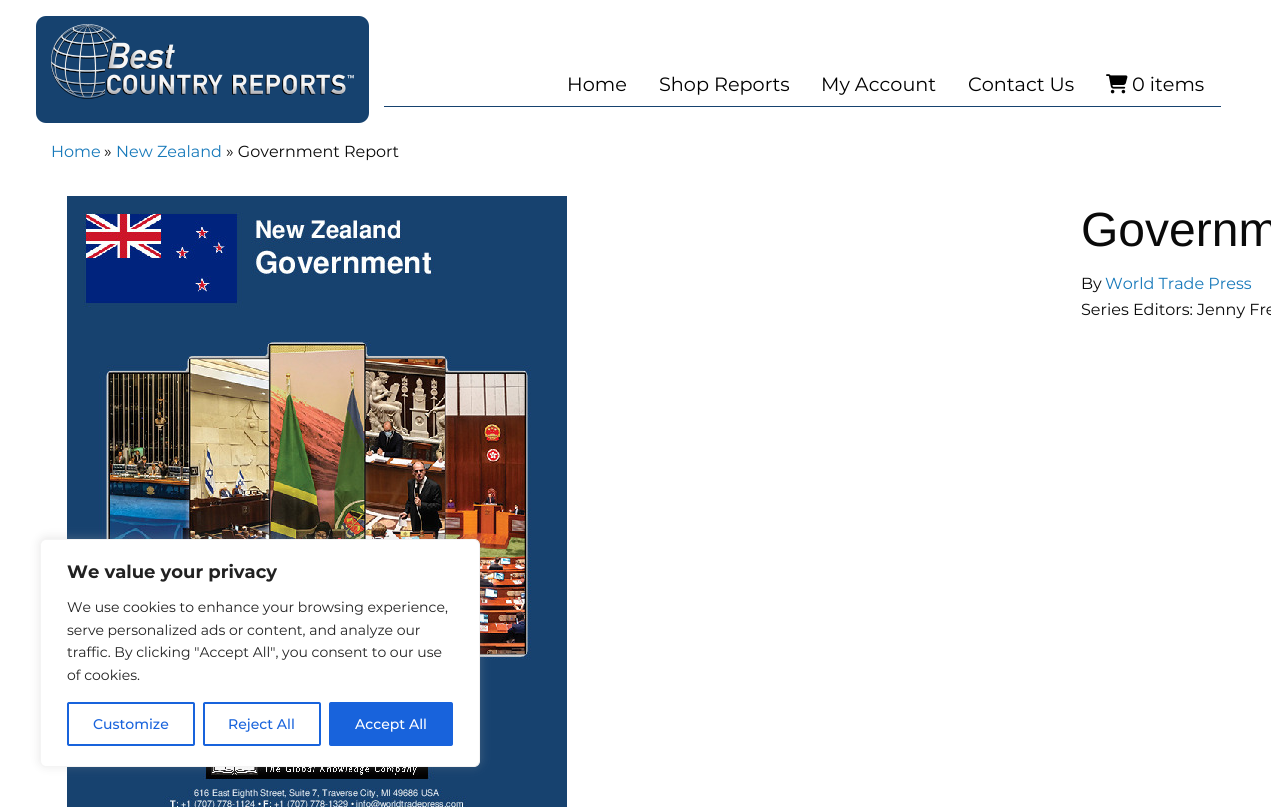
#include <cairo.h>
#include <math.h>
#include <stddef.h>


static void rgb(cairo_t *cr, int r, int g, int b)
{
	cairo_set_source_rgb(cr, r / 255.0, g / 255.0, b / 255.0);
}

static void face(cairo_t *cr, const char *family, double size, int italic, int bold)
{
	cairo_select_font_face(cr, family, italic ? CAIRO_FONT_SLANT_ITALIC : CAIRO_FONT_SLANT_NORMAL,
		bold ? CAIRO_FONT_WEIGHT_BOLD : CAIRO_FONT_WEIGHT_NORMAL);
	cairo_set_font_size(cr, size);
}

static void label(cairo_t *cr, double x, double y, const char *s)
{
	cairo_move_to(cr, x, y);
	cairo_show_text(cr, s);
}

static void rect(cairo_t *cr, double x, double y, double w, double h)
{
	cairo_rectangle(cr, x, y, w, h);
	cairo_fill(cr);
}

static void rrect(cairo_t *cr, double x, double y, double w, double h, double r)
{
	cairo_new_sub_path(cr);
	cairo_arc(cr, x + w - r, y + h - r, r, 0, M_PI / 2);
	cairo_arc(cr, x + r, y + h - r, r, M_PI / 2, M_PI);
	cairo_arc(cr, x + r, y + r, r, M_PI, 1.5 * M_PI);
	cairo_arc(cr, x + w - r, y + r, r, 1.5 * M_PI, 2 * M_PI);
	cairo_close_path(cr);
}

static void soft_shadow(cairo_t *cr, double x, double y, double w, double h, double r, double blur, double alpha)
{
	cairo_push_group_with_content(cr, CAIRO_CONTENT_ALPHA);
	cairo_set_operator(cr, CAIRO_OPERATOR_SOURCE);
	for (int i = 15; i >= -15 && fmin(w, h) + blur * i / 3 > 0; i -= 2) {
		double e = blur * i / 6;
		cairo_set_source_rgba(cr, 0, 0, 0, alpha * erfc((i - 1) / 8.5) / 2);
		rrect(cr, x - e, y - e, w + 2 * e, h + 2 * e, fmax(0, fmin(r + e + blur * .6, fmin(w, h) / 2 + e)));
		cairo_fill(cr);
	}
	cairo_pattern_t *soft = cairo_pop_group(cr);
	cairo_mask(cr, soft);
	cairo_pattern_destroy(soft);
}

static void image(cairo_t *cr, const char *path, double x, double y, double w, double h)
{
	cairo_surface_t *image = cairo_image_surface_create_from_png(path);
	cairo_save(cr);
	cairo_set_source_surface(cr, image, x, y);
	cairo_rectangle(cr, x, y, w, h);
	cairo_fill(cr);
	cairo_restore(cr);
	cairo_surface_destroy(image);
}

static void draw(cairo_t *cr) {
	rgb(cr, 255, 255, 255);
	cairo_paint(cr);
	rgb(cr, 22, 66, 111);
	rrect(cr, 36, 16, 333, 107, 10);
	cairo_fill(cr);
	image(cr, "image0.png", 51, 24, 303, 75);
	rect(cr, 384, 106, 837, 1);
	face(cr, "Montserrat", 19.25, 0, 0);
	rgb(cr, 0, 0, 0);
	label(cr, 567, 91, "Home");
	label(cr, 659, 91, "Shop Reports");
	label(cr, 821, 91, "My Account");
	label(cr, 968, 91, "Contact Us");
	image(cr, "image1.png", 1106, 74, 22, 20);
	label(cr, 1132, 91, "0 items");
	face(cr, "Montserrat", 16, 0, 0);
	rgb(cr, 23, 121, 186);
	label(cr, 51, 157, "Home");
	rgb(cr, 10, 10, 10);
	label(cr, 104, 157, "»");
	rgb(cr, 23, 121, 186);
	label(cr, 116, 157, "New Zealand");
	rgb(cr, 10, 10, 10);
	label(cr, 226, 157, "» Government Report");
	image(cr, "image2.png", 67, 196, 500, 611);
	face(cr, "Liberation Sans", 48, 0, 0);
	label(cr, 1081, 246, "Governm");
	face(cr, "Montserrat", 16, 0, 0);
	label(cr, 1081, 289, "By");
	rgb(cr, 23, 121, 186);
	label(cr, 1105, 289, "World Trade Press");
	rgb(cr, 10, 10, 10);
	label(cr, 1081, 315, "Series Editors: Jenny Fre");
	rgb(cr, 172, 171, 171);
	soft_shadow(cr, 40, 538, 440, 228, 6, 5, 0.3);
	rgb(cr, 255, 255, 255);
	rrect(cr, 40.5, 539.5, 439, 227, 5.5);
	cairo_fill_preserve(cr);
	rgb(cr, 244, 244, 244);
	cairo_set_line_width(cr, 1);
	cairo_stroke(cr);
	face(cr, "Montserrat", 18, 0, 1);
	rgb(cr, 33, 33, 33);
	label(cr, 67, 578, "We value your privacy");
	face(cr, "Montserrat", 14, 0, 0);
	label(cr, 67, 612, "We use cookies to enhance your browsing experience,");
	label(cr, 67, 635, "serve personalized ads or content, and analyze our");
	label(cr, 67, 657, "traffic. By clicking \"Accept All\", you consent to our use");
	label(cr, 67, 680, "of cookies.");
	rrect(cr, 68, 703, 126, 42, 1);
	rgb(cr, 24, 99, 220);
	cairo_set_line_width(cr, 2);
	cairo_stroke(cr);
	face(cr, "Montserrat Medium", 14, 0, 0);
	label(cr, 93, 729, "Customize");
	rrect(cr, 204, 703, 116, 42, 1);
	cairo_stroke(cr);
	label(cr, 228, 729, "Reject All");
	rrect(cr, 330, 703, 122, 42, 1);
	cairo_fill_preserve(cr);
	cairo_stroke(cr);
	rgb(cr, 255, 255, 255);
	label(cr, 355, 729, "Accept All");
}

int main(void) {
	cairo_surface_t *surface = cairo_image_surface_create(CAIRO_FORMAT_RGB24, 1271, 807);
	cairo_t *cr = cairo_create(surface);
	cairo_font_options_t *options = cairo_font_options_create();
	cairo_font_options_set_hint_metrics(options, CAIRO_HINT_METRICS_OFF);
	cairo_font_options_set_hint_style(options, CAIRO_HINT_STYLE_NONE);
	cairo_set_font_options(cr, options);
	cairo_set_miter_limit(cr, 4);
	draw(cr);
	cairo_surface_write_to_png(surface, "render.png");
	cairo_font_options_destroy(options);
	cairo_destroy(cr);
	cairo_surface_destroy(surface);
	return 0;
}
